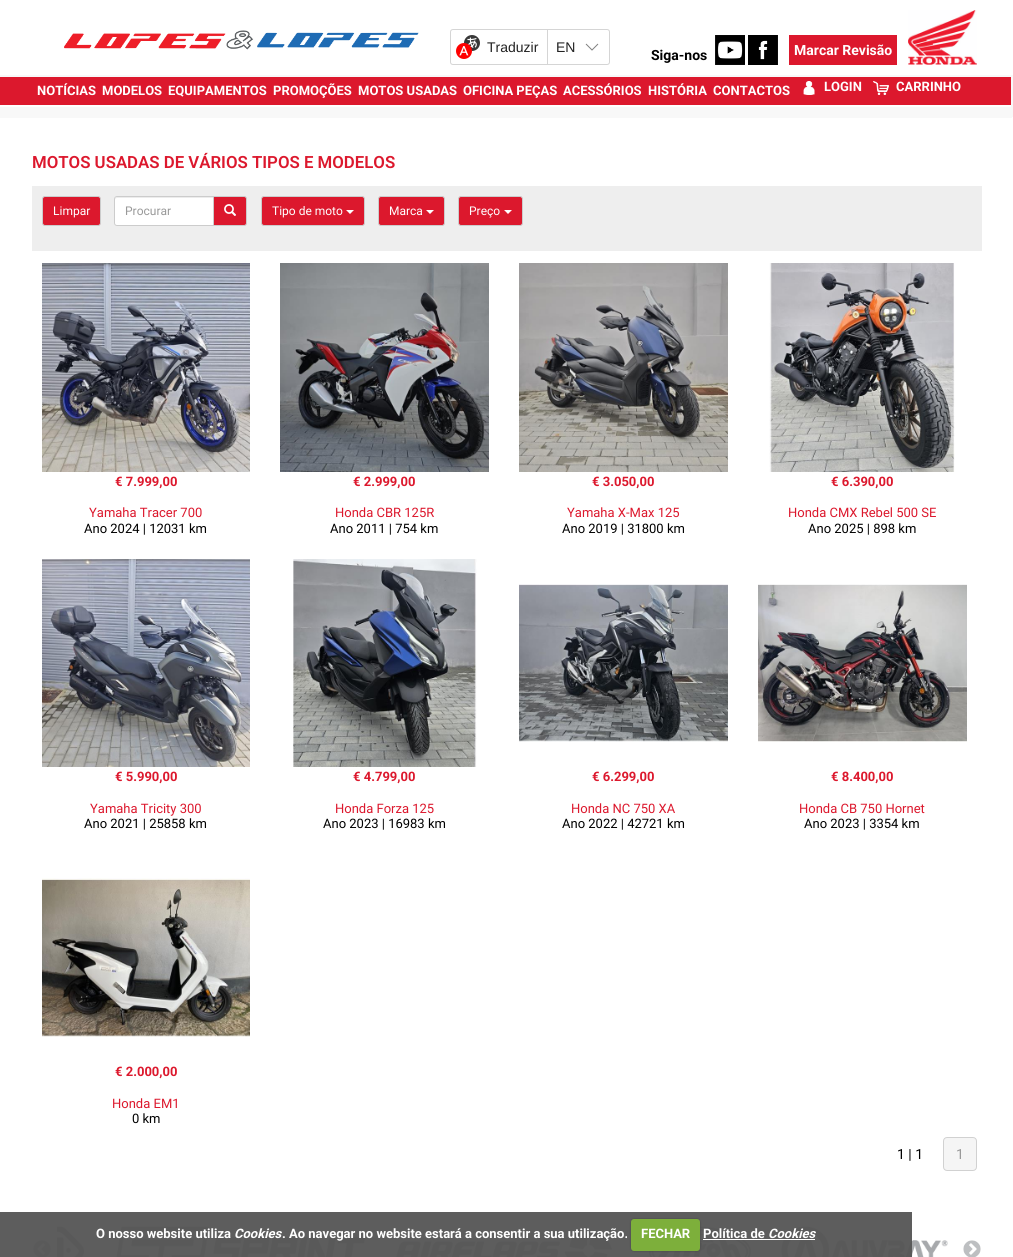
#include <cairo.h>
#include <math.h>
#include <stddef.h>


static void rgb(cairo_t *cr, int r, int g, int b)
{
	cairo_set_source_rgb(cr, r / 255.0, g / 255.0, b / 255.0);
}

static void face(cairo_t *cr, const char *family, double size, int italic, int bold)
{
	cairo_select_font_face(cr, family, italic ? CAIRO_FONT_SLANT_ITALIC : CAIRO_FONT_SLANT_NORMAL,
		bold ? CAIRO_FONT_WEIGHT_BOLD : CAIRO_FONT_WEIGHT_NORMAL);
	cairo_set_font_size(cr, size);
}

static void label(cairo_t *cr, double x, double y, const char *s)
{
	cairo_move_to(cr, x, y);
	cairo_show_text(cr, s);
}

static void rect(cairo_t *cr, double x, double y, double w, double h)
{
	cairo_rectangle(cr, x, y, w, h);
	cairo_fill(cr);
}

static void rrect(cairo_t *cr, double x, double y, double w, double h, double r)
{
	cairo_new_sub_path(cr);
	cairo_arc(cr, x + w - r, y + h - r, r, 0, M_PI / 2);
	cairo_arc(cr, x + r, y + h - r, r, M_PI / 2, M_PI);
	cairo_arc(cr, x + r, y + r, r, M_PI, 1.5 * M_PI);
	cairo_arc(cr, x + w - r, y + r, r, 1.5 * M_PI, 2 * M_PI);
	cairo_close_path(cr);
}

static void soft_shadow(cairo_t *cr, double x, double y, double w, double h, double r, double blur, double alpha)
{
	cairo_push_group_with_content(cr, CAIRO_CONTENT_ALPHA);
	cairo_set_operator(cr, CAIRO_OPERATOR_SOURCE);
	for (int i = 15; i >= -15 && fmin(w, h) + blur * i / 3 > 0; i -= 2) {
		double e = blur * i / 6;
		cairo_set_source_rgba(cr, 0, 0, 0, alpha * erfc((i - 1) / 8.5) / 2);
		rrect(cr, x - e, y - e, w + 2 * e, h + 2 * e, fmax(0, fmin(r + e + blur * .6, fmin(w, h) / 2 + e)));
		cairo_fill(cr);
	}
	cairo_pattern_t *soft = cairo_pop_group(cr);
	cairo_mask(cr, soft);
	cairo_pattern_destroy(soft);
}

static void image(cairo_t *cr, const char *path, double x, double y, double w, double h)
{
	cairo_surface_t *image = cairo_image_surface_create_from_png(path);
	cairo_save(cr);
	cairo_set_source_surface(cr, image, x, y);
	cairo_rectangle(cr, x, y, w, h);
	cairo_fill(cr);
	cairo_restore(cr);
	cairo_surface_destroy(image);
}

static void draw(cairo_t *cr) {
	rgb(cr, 255, 255, 255);
	cairo_paint(cr);
	image(cr, "image0.png", 64, 30, 355, 20);
	cairo_new_path(cr);
	cairo_move_to(cr, 453, 29.5);
	cairo_line_to(cr, 547.5, 29.5);
	cairo_line_to(cr, 547.5, 64.5);
	cairo_line_to(cr, 453, 64.5);
	cairo_curve_to(cr, 451.5, 64.5, 450.5, 63.5, 450.5, 62);
	cairo_line_to(cr, 450.5, 32);
	cairo_curve_to(cr, 450.5, 30.5, 451.5, 29.5, 453, 29.5);
	cairo_close_path(cr);
	rgb(cr, 213, 213, 213);
	cairo_set_line_width(cr, 1);
	cairo_stroke(cr);
	image(cr, "image1.png", 456, 35, 24, 24);
	face(cr, "Liberation Sans", 14, 0, 0);
	rgb(cr, 34, 34, 34);
	label(cr, 487, 52, "Traduzir");
	rgb(cr, 255, 255, 255);
	cairo_new_path(cr);
	cairo_move_to(cr, 547.5, 29.5);
	cairo_line_to(cr, 607, 29.5);
	cairo_curve_to(cr, 608.5, 29.5, 609.5, 30.5, 609.5, 32);
	cairo_line_to(cr, 609.5, 62);
	cairo_curve_to(cr, 609.5, 63.5, 608.5, 64.5, 607, 64.5);
	cairo_line_to(cr, 547.5, 64.5);
	cairo_close_path(cr);
	cairo_fill_preserve(cr);
	rgb(cr, 213, 213, 213);
	cairo_stroke(cr);
	rgb(cr, 34, 34, 34);
	label(cr, 556, 52, "EN");
	image(cr, "image2.png", 585, 43, 14, 8);
	face(cr, "Roboto", 14, 0, 1);
	rgb(cr, 0, 0, 0);
	label(cr, 651, 60, "Siga-nos");
	image(cr, "image3.png", 715, 35, 30, 30);
	image(cr, "image4.png", 748, 35, 30, 30);
	rgb(cr, 220, 24, 45);
	rect(cr, 789, 35, 108, 30);
	rgb(cr, 255, 255, 255);
	label(cr, 794, 55, "Marcar Revisão");
	image(cr, "image5.png", 908, 10, 69, 55);
	rgb(cr, 248, 248, 248);
	rect(cr, 0, 75, 1013, 42);
	rect(cr, 0, 117, 1012, 1);
	rgb(cr, 220, 24, 45);
	rect(cr, 0, 77, 1011, 28);
	rgb(cr, 255, 255, 255);
	rect(cr, 0, 105, 1011, 2);
	face(cr, "Roboto", 13, 0, 1);
	label(cr, 37, 95, "NOTÍCIAS");
	label(cr, 102, 95, "MODELOS");
	label(cr, 168, 95, "EQUIPAMENTOS");
	label(cr, 273, 95, "PROMOÇÕES");
	label(cr, 358, 95, "MOTOS USADAS");
	label(cr, 463, 95, "OFICINA PEÇAS");
	label(cr, 563, 95, "ACESSÓRIOS");
	label(cr, 648, 95, "HISTÓRIA");
	label(cr, 713, 95, "CONTACTOS");
	image(cr, "image6.png", 803, 81, 12, 14);
	label(cr, 824, 91, "LOGIN");
	image(cr, "image7.png", 873, 81, 16, 14);
	label(cr, 896, 91, "CARRINHO");
	face(cr, "Roboto SemiBold", 16.8, 0, 0);
	rgb(cr, 220, 24, 45);
	label(cr, 32, 168, "MOTOS USADAS DE VÁRIOS TIPOS E MODELOS");
	rgb(cr, 238, 238, 238);
	rect(cr, 32, 186, 950, 65);
	rgb(cr, 220, 24, 45);
	rrect(cr, 42.5, 196.5, 58, 29, 2.5);
	cairo_fill_preserve(cr);
	rgb(cr, 204, 204, 204);
	cairo_stroke(cr);
	face(cr, "Roboto", 12, 0, 0);
	rgb(cr, 255, 255, 255);
	label(cr, 53, 215, "Limpar");
	cairo_new_path(cr);
	cairo_move_to(cr, 117, 196);
	cairo_line_to(cr, 214, 196);
	cairo_line_to(cr, 214, 226);
	cairo_line_to(cr, 117, 226);
	cairo_curve_to(cr, 115.5, 226, 114, 224.5, 114, 223);
	cairo_line_to(cr, 114, 199);
	cairo_curve_to(cr, 114, 197.5, 115.5, 196, 117, 196);
	cairo_close_path(cr);
	cairo_fill(cr);
	rgb(cr, 236, 236, 236);
	cairo_new_path(cr);
	cairo_move_to(cr, 117, 198);
	cairo_line_to(cr, 213, 198);
	cairo_line_to(cr, 213, 197);
	cairo_line_to(cr, 117, 197);
	cairo_curve_to(cr, 116, 197, 115, 198, 115, 199);
	cairo_line_to(cr, 115, 200);
	cairo_curve_to(cr, 115, 199, 116, 198, 117, 198);
	cairo_close_path(cr);
	cairo_fill(cr);
	cairo_new_path(cr);
	cairo_move_to(cr, 117, 196.5);
	cairo_line_to(cr, 213.5, 196.5);
	cairo_line_to(cr, 213.5, 225.5);
	cairo_line_to(cr, 117, 225.5);
	cairo_curve_to(cr, 115.5, 225.5, 114.5, 224.5, 114.5, 223);
	cairo_line_to(cr, 114.5, 199);
	cairo_curve_to(cr, 114.5, 197.5, 115.5, 196.5, 117, 196.5);
	cairo_close_path(cr);
	rgb(cr, 204, 204, 204);
	cairo_stroke(cr);
	rgb(cr, 153, 153, 153);
	label(cr, 125, 215, "Procurar");
	rgb(cr, 220, 24, 45);
	cairo_new_path(cr);
	cairo_move_to(cr, 213.5, 196.5);
	cairo_line_to(cr, 244, 196.5);
	cairo_curve_to(cr, 245.5, 196.5, 246.5, 197.5, 246.5, 199);
	cairo_line_to(cr, 246.5, 223);
	cairo_curve_to(cr, 246.5, 224.5, 245.5, 225.5, 244, 225.5);
	cairo_line_to(cr, 213.5, 225.5);
	cairo_close_path(cr);
	cairo_fill_preserve(cr);
	rgb(cr, 204, 204, 204);
	cairo_stroke(cr);
	image(cr, "image8.png", 224, 204, 12, 12);
	rgb(cr, 220, 24, 45);
	rrect(cr, 261.5, 196.5, 103, 29, 2.5);
	cairo_fill_preserve(cr);
	rgb(cr, 204, 204, 204);
	cairo_stroke(cr);
	rgb(cr, 255, 255, 255);
	label(cr, 272, 215, "Tipo de moto");
	cairo_new_path(cr);
	cairo_move_to(cr, 346, 210);
	cairo_line_to(cr, 354, 210);
	cairo_line_to(cr, 350, 214);
	cairo_close_path(cr);
	cairo_fill(cr);
	rgb(cr, 220, 24, 45);
	rrect(cr, 378.5, 196.5, 66, 29, 2.5);
	cairo_fill_preserve(cr);
	rgb(cr, 204, 204, 204);
	cairo_stroke(cr);
	rgb(cr, 255, 255, 255);
	label(cr, 389, 215, "Marca");
	cairo_new_path(cr);
	cairo_move_to(cr, 426, 210);
	cairo_line_to(cr, 434, 210);
	cairo_line_to(cr, 430, 214);
	cairo_close_path(cr);
	cairo_fill(cr);
	rgb(cr, 220, 24, 45);
	rrect(cr, 458.5, 196.5, 64, 29, 2.5);
	cairo_fill_preserve(cr);
	rgb(cr, 204, 204, 204);
	cairo_stroke(cr);
	rgb(cr, 255, 255, 255);
	label(cr, 469, 215, "Preço");
	cairo_new_path(cr);
	cairo_move_to(cr, 504, 210);
	cairo_line_to(cr, 512, 210);
	cairo_line_to(cr, 508, 214);
	cairo_close_path(cr);
	cairo_fill(cr);
	image(cr, "image9.png", 42, 263, 208, 209);
	face(cr, "Roboto", 13, 0, 1);
	rgb(cr, 220, 24, 45);
	label(cr, 115, 486, "€ 7.999,00");
	face(cr, "Roboto", 13, 0, 0);
	label(cr, 89, 517, "Yamaha Tracer 700");
	rgb(cr, 0, 0, 0);
	label(cr, 84, 533, "Ano 2024 | 12031 km");
	image(cr, "image10.png", 280, 263, 209, 209);
	face(cr, "Roboto", 13, 0, 1);
	rgb(cr, 220, 24, 45);
	label(cr, 353, 486, "€ 2.999,00");
	face(cr, "Roboto", 13, 0, 0);
	label(cr, 335, 517, "Honda CBR 125R");
	rgb(cr, 0, 0, 0);
	label(cr, 330, 533, "Ano 2011 | 754 km");
	image(cr, "image11.png", 519, 263, 209, 209);
	face(cr, "Roboto", 13, 0, 1);
	rgb(cr, 220, 24, 45);
	label(cr, 592, 486, "€ 3.050,00");
	face(cr, "Roboto", 13, 0, 0);
	label(cr, 567, 517, "Yamaha X-Max 125");
	rgb(cr, 0, 0, 0);
	label(cr, 562, 533, "Ano 2019 | 31800 km");
	image(cr, "image12.png", 769, 263, 186, 209);
	face(cr, "Roboto", 13, 0, 1);
	rgb(cr, 220, 24, 45);
	label(cr, 831, 486, "€ 6.390,00");
	face(cr, "Roboto", 13, 0, 0);
	label(cr, 788, 517, "Honda CMX Rebel 500 SE");
	rgb(cr, 0, 0, 0);
	label(cr, 808, 533, "Ano 2025 | 898 km");
	image(cr, "image13.png", 42, 559, 208, 208);
	face(cr, "Roboto", 13, 0, 1);
	rgb(cr, 220, 24, 45);
	label(cr, 115, 781, "€ 5.990,00");
	face(cr, "Roboto", 13, 0, 0);
	label(cr, 90, 813, "Yamaha Tricity 300");
	rgb(cr, 0, 0, 0);
	label(cr, 84, 828, "Ano 2021 | 25858 km");
	image(cr, "image14.png", 293, 559, 184, 208);
	face(cr, "Roboto", 13, 0, 1);
	rgb(cr, 220, 24, 45);
	label(cr, 353, 781, "€ 4.799,00");
	face(cr, "Roboto", 13, 0, 0);
	label(cr, 335, 813, "Honda Forza 125");
	rgb(cr, 0, 0, 0);
	label(cr, 323, 828, "Ano 2023 | 16983 km");
	image(cr, "image15.png", 519, 584, 209, 158);
	face(cr, "Roboto", 13, 0, 1);
	rgb(cr, 220, 24, 45);
	label(cr, 592, 781, "€ 6.299,00");
	face(cr, "Roboto", 13, 0, 0);
	label(cr, 571, 813, "Honda NC 750 XA");
	rgb(cr, 0, 0, 0);
	label(cr, 562, 828, "Ano 2022 | 42721 km");
	image(cr, "image16.png", 758, 584, 209, 158);
	face(cr, "Roboto", 13, 0, 1);
	rgb(cr, 220, 24, 45);
	label(cr, 831, 781, "€ 8.400,00");
	face(cr, "Roboto", 13, 0, 0);
	label(cr, 799, 813, "Honda CB 750 Hornet");
	rgb(cr, 0, 0, 0);
	label(cr, 804, 828, "Ano 2023 | 3354 km");
	image(cr, "image17.png", 42, 878, 208, 159);
	face(cr, "Roboto", 13, 0, 1);
	rgb(cr, 220, 24, 45);
	label(cr, 115, 1076, "€ 2.000,00");
	face(cr, "Roboto", 13, 0, 0);
	label(cr, 112, 1108, "Honda EM1");
	rgb(cr, 0, 0, 0);
	label(cr, 132, 1123, "0 km");
	face(cr, "Roboto", 14, 0, 0);
	label(cr, 897, 1159, "1 | 1");
	rgb(cr, 245, 245, 245);
	rrect(cr, 943.5, 1137.5, 33, 33, 3.5);
	cairo_fill_preserve(cr);
	rgb(cr, 209, 209, 209);
	cairo_stroke(cr);
	rgb(cr, 153, 153, 153);
	label(cr, 956, 1159, "1");
	image(cr, "image18.png", 33, 1240, 18, 17);
	image(cr, "image19.png", 57, 1226, 27, 31);
	image(cr, "image20.png", 116, 1226, 249, 31);
	image(cr, "image21.png", 396, 1226, 223, 31);
	image(cr, "image22.png", 649, 1226, 102, 31);
	image(cr, "image23.png", 781, 1226, 167, 31);
	image(cr, "image24.png", 963, 1240, 18, 17);
	cairo_set_source_rgba(cr, 0.337, 0.337, 0.337, 0.95);
	rect(cr, 0, 1212, 912, 45);
	face(cr, "Roboto", 13, 0, 1);
	rgb(cr, 255, 255, 255);
	label(cr, 96, 1238, "O nosso website utiliza");
	face(cr, "Roboto", 13, 1, 1);
	label(cr, 234, 1238, "Cookies");
	face(cr, "Roboto", 13, 0, 1);
	label(cr, 282, 1238, ". Ao navegar no website estará a consentir a sua utilização.");
	rgb(cr, 0, 0, 0);
	soft_shadow(cr, 631, 1219, 69, 32, 3, 1, 0.25);
	rgb(cr, 125, 175, 59);
	rrect(cr, 631, 1219, 69, 32, 3);
	cairo_fill(cr);
	rgb(cr, 255, 255, 255);
	label(cr, 641, 1238, "FECHAR");
	label(cr, 703, 1238, "Política de");
	rect(cr, 703, 1239, 112, 1);
	face(cr, "Roboto", 13, 1, 1);
	label(cr, 768, 1238, "Cookies");
}

int main(void) {
	cairo_surface_t *surface = cairo_image_surface_create(CAIRO_FORMAT_RGB24, 1013, 1257);
	cairo_t *cr = cairo_create(surface);
	cairo_font_options_t *options = cairo_font_options_create();
	cairo_font_options_set_hint_metrics(options, CAIRO_HINT_METRICS_OFF);
	cairo_font_options_set_hint_style(options, CAIRO_HINT_STYLE_NONE);
	cairo_set_font_options(cr, options);
	cairo_set_miter_limit(cr, 4);
	draw(cr);
	cairo_surface_write_to_png(surface, "render.png");
	cairo_font_options_destroy(options);
	cairo_destroy(cr);
	cairo_surface_destroy(surface);
	return 0;
}
